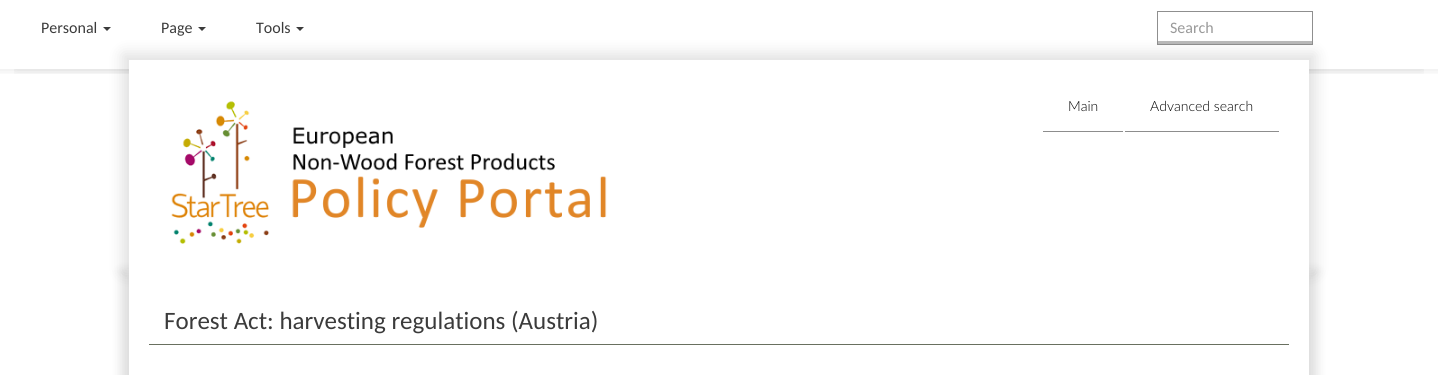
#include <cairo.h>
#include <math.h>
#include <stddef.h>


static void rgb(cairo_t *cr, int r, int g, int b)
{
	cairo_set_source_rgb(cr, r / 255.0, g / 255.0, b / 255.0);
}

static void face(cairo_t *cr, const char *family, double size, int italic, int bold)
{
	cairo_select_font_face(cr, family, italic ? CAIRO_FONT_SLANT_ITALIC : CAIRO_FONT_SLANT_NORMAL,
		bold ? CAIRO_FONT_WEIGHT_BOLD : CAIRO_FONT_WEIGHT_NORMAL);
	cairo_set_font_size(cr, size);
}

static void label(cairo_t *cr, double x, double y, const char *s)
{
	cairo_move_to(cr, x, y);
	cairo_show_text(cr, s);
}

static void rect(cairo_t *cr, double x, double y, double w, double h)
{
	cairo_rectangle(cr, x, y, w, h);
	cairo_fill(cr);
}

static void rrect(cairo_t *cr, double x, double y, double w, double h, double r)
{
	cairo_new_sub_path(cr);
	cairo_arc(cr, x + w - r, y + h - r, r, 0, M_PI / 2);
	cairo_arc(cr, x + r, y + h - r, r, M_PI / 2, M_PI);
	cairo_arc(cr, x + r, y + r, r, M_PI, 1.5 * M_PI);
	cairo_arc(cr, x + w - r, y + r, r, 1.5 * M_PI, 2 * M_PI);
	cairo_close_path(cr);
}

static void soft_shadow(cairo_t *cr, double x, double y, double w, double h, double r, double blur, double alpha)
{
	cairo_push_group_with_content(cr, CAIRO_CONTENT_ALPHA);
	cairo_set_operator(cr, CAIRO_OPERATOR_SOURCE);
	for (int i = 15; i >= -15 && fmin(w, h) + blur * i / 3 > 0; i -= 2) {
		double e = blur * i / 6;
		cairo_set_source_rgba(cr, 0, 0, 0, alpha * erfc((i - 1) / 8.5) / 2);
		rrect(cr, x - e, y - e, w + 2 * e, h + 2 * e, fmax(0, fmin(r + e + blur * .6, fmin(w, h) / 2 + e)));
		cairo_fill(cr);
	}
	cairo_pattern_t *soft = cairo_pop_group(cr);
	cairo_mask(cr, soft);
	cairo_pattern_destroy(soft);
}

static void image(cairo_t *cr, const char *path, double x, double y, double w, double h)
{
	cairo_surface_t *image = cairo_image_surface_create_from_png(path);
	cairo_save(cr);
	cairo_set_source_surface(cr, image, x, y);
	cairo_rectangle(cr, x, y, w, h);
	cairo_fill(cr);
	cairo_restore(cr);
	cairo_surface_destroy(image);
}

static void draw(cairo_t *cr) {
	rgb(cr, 255, 255, 255);
	cairo_paint(cr);
	cairo_save(cr);
	cairo_rectangle(cr, 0, 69, 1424, 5);
	cairo_clip(cr);
	rgb(cr, 0, 0, 0);
	soft_shadow(cr, -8, 16, 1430, 52, 0, 6, 0.13);
	cairo_restore(cr);
	cairo_save(cr);
	cairo_rectangle(cr, 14, 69, 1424, 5);
	cairo_clip(cr);
	rgb(cr, 0, 0, 0);
	soft_shadow(cr, 16, 16, 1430, 52, 0, 6, 0.13);
	cairo_restore(cr);
	rgb(cr, 255, 255, 255);
	rect(cr, 0, 60, 1438, 9);
	face(cr, "Carlito", 16, 0, 0);
	rgb(cr, 59, 59, 59);
	label(cr, 41, 33, "Personal");
	cairo_new_path(cr);
	cairo_move_to(cr, 103, 27);
	cairo_line_to(cr, 111, 27);
	cairo_line_to(cr, 107, 31);
	cairo_close_path(cr);
	cairo_fill(cr);
	label(cr, 161, 33, "Page");
	cairo_new_path(cr);
	cairo_move_to(cr, 198, 27);
	cairo_line_to(cr, 206, 27);
	cairo_line_to(cr, 202, 31);
	cairo_close_path(cr);
	cairo_fill(cr);
	label(cr, 256, 33, "Tools");
	cairo_new_path(cr);
	cairo_move_to(cr, 296, 27);
	cairo_line_to(cr, 304, 27);
	cairo_line_to(cr, 300, 31);
	cairo_close_path(cr);
	cairo_fill(cr);
	rgb(cr, 185, 185, 185);
	rect(cr, 1158, 41, 154, 3);
	cairo_rectangle(cr, 1157.5, 11.5, 155, 33);
	rgb(cr, 143, 143, 143);
	cairo_set_line_width(cr, 1);
	cairo_stroke(cr);
	rgb(cr, 153, 153, 153);
	label(cr, 1170, 33, "Search");
	rgb(cr, 0, 0, 0);
	soft_shadow(cr, 123, 54, 1192, 219, 0, 7.5, 0.13);
	rgb(cr, 255, 255, 255);
	rect(cr, 129, 60, 1180, 198);
	image(cr, "image0.png", 171, 101, 436, 143);
	rgb(cr, 141, 141, 141);
	rect(cr, 1043, 131, 80, 1);
	face(cr, "Lato Light", 14, 0, 0);
	rgb(cr, 0, 0, 0);
	label(cr, 1068, 111, "Main");
	rgb(cr, 141, 141, 141);
	rect(cr, 1125, 131, 154, 1);
	rgb(cr, 0, 0, 0);
	label(cr, 1150, 111, "Advanced search");
	rgb(cr, 0, 0, 0);
	soft_shadow(cr, 121, 271, 1172, 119, 0, 5, 0.13);
	soft_shadow(cr, 145, 271, 1172, 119, 0, 5, 0.13);
	rgb(cr, 255, 255, 255);
	rect(cr, 129, 258, 1180, 117);
	rgb(cr, 105, 112, 96);
	rect(cr, 149, 344, 1140, 1);
	face(cr, "Carlito", 25, 0, 0);
	rgb(cr, 59, 59, 59);
	label(cr, 164, 329, "Forest Act: harvesting regulations (Austria)");
}

int main(void) {
	cairo_surface_t *surface = cairo_image_surface_create(CAIRO_FORMAT_RGB24, 1438, 375);
	cairo_t *cr = cairo_create(surface);
	cairo_font_options_t *options = cairo_font_options_create();
	cairo_font_options_set_hint_metrics(options, CAIRO_HINT_METRICS_OFF);
	cairo_font_options_set_hint_style(options, CAIRO_HINT_STYLE_NONE);
	cairo_set_font_options(cr, options);
	cairo_set_miter_limit(cr, 4);
	draw(cr);
	cairo_surface_write_to_png(surface, "render.png");
	cairo_font_options_destroy(options);
	cairo_destroy(cr);
	cairo_surface_destroy(surface);
	return 0;
}
